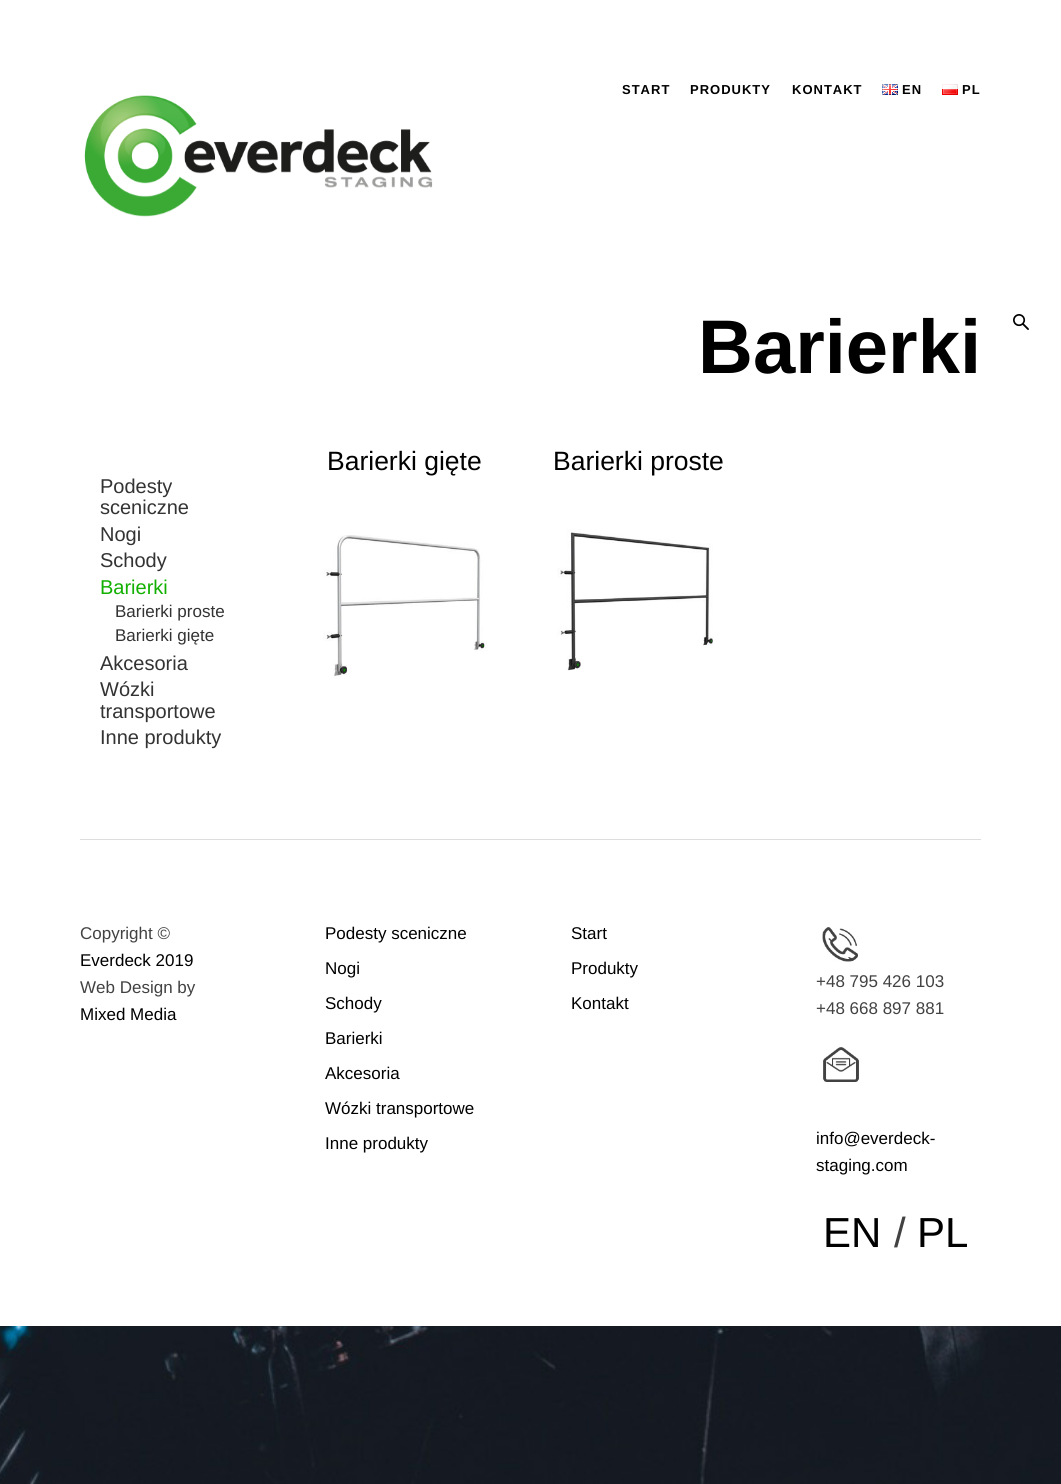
#include <cairo.h>
#include <math.h>
#include <stddef.h>


static void rgb(cairo_t *cr, int r, int g, int b)
{
	cairo_set_source_rgb(cr, r / 255.0, g / 255.0, b / 255.0);
}

static void face(cairo_t *cr, const char *family, double size, int italic, int bold)
{
	cairo_select_font_face(cr, family, italic ? CAIRO_FONT_SLANT_ITALIC : CAIRO_FONT_SLANT_NORMAL,
		bold ? CAIRO_FONT_WEIGHT_BOLD : CAIRO_FONT_WEIGHT_NORMAL);
	cairo_set_font_size(cr, size);
}

static void label(cairo_t *cr, double x, double y, const char *s)
{
	cairo_move_to(cr, x, y);
	cairo_show_text(cr, s);
}

static void tracked(cairo_t *cr, double x, double y, const char *s, double letter, double word)
{
	cairo_move_to(cr, x, y);
	while (*s) {
		char ch[5] = {0};
		int n = 0;
		do ch[n++] = *s++; while ((*s & 0xC0) == 0x80);
		cairo_show_text(cr, ch);
		cairo_rel_move_to(cr, letter + word * (*ch == ' '), 0);
	}
}

static void rect(cairo_t *cr, double x, double y, double w, double h)
{
	cairo_rectangle(cr, x, y, w, h);
	cairo_fill(cr);
}

static void image(cairo_t *cr, const char *path, double x, double y, double w, double h)
{
	cairo_surface_t *image = cairo_image_surface_create_from_png(path);
	cairo_save(cr);
	cairo_set_source_surface(cr, image, x, y);
	cairo_rectangle(cr, x, y, w, h);
	cairo_fill(cr);
	cairo_restore(cr);
	cairo_surface_destroy(image);
}

static void draw(cairo_t *cr) {
	rgb(cr, 255, 255, 255);
	cairo_paint(cr);
	face(cr, "Liberation Sans", 13, 0, 1);
	rgb(cr, 0, 0, 0);
	tracked(cr, 622, 94, "START", 1, 0);
	tracked(cr, 690, 94, "PRODUKTY", 1, 0);
	tracked(cr, 792, 94, "KONTAKT", 1, 0);
	image(cr, "image0.png", 882, 84, 16, 11);
	tracked(cr, 902, 94, "EN", 1, 0);
	image(cr, "image1.png", 942, 84, 16, 11);
	tracked(cr, 962, 94, "PL", 1, 0);
	image(cr, "image2.png", 84, 95, 349, 122);
	image(cr, "image3.png", 1013, 314, 16, 16);
	face(cr, "Liberation Sans", 76, 0, 1);
	label(cr, 698, 373, "Barierki");
	face(cr, "Liberation Sans", 26.5, 0, 0);
	label(cr, 327, 470, "Barierki gięte");
	image(cr, "image4.png", 323, 535, 165, 144);
	label(cr, 553, 470, "Barierki proste");
	image(cr, "image5.png", 557, 529, 156, 142);
	face(cr, "Arimo", 20, 0, 0);
	rgb(cr, 51, 51, 51);
	label(cr, 100, 493, "Podesty");
	label(cr, 100, 514, "sceniczne");
	label(cr, 100, 541, "Nogi");
	label(cr, 100, 567, "Schody");
	rgb(cr, 17, 176, 0);
	label(cr, 100, 594, "Barierki");
	face(cr, "Arimo", 17, 0, 0);
	rgb(cr, 51, 51, 51);
	label(cr, 115, 617, "Barierki proste");
	label(cr, 115, 641, "Barierki gięte");
	face(cr, "Arimo", 20, 0, 0);
	label(cr, 100, 670, "Akcesoria");
	label(cr, 100, 696, "Wózki");
	label(cr, 100, 718, "transportowe");
	label(cr, 100, 744, "Inne produkty");
	rgb(cr, 221, 221, 221);
	rect(cr, 80, 839, 901, 1);
	face(cr, "Liberation Sans", 17, 0, 0);
	rgb(cr, 66, 66, 66);
	label(cr, 80, 939, "Copyright ©");
	rgb(cr, 0, 0, 0);
	label(cr, 80, 966, "Everdeck 2019");
	rgb(cr, 66, 66, 66);
	label(cr, 80, 993, "Web Design by");
	rgb(cr, 0, 0, 0);
	label(cr, 80, 1020, "Mixed Media");
	label(cr, 325, 939, "Podesty sceniczne");
	label(cr, 325, 974, "Nogi");
	label(cr, 325, 1009, "Schody");
	label(cr, 325, 1044, "Barierki");
	label(cr, 325, 1079, "Akcesoria");
	label(cr, 325, 1114, "Wózki transportowe");
	label(cr, 325, 1149, "Inne produkty");
	label(cr, 571, 939, "Start");
	label(cr, 571, 974, "Produkty");
	label(cr, 571, 1009, "Kontakt");
	image(cr, "image6.png", 822, 927, 36, 35);
	rgb(cr, 66, 66, 66);
	label(cr, 816, 987, "+48 795 426 103");
	label(cr, 816, 1014, "+48 668 897 881");
	image(cr, "image7.png", 823, 1047, 36, 35);
	rgb(cr, 0, 0, 0);
	label(cr, 816, 1144, "info@everdeck-");
	label(cr, 816, 1171, "staging.com");
	face(cr, "Liberation Sans", 42, 0, 0);
	label(cr, 823, 1247, "EN");
	rgb(cr, 66, 66, 66);
	label(cr, 894, 1247, "/");
	rgb(cr, 0, 0, 0);
	label(cr, 917, 1247, "PL");
	image(cr, "image8.png", 0, 1326, 1061, 158);
}

int main(void) {
	cairo_surface_t *surface = cairo_image_surface_create(CAIRO_FORMAT_RGB24, 1061, 1484);
	cairo_t *cr = cairo_create(surface);
	cairo_font_options_t *options = cairo_font_options_create();
	cairo_font_options_set_hint_metrics(options, CAIRO_HINT_METRICS_OFF);
	cairo_font_options_set_hint_style(options, CAIRO_HINT_STYLE_NONE);
	cairo_set_font_options(cr, options);
	cairo_set_miter_limit(cr, 4);
	draw(cr);
	cairo_surface_write_to_png(surface, "render.png");
	cairo_font_options_destroy(options);
	cairo_destroy(cr);
	cairo_surface_destroy(surface);
	return 0;
}
